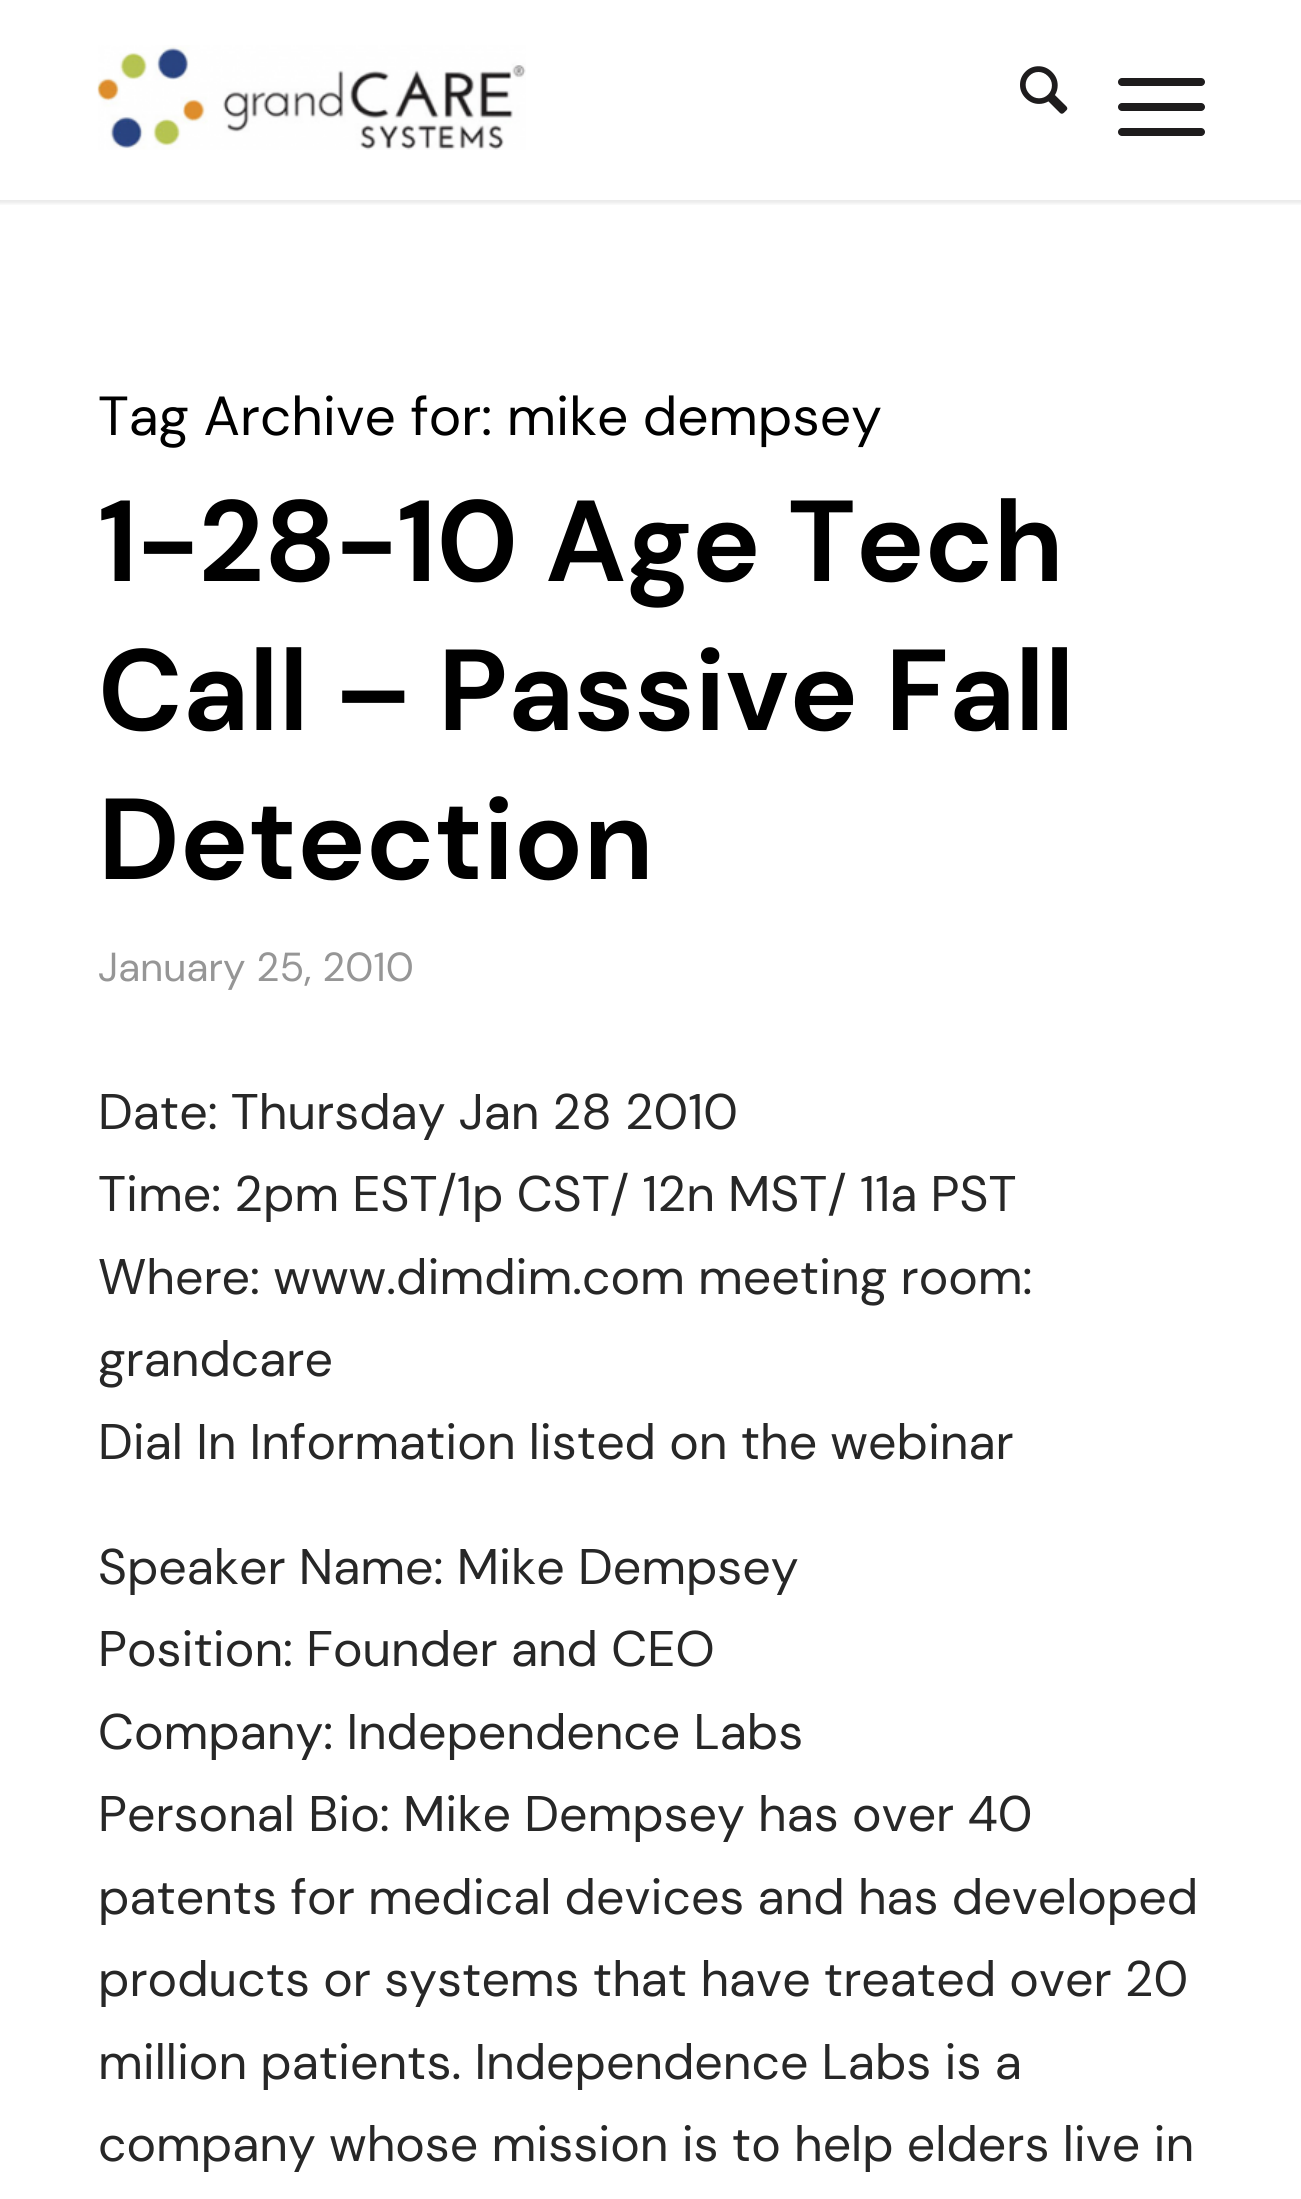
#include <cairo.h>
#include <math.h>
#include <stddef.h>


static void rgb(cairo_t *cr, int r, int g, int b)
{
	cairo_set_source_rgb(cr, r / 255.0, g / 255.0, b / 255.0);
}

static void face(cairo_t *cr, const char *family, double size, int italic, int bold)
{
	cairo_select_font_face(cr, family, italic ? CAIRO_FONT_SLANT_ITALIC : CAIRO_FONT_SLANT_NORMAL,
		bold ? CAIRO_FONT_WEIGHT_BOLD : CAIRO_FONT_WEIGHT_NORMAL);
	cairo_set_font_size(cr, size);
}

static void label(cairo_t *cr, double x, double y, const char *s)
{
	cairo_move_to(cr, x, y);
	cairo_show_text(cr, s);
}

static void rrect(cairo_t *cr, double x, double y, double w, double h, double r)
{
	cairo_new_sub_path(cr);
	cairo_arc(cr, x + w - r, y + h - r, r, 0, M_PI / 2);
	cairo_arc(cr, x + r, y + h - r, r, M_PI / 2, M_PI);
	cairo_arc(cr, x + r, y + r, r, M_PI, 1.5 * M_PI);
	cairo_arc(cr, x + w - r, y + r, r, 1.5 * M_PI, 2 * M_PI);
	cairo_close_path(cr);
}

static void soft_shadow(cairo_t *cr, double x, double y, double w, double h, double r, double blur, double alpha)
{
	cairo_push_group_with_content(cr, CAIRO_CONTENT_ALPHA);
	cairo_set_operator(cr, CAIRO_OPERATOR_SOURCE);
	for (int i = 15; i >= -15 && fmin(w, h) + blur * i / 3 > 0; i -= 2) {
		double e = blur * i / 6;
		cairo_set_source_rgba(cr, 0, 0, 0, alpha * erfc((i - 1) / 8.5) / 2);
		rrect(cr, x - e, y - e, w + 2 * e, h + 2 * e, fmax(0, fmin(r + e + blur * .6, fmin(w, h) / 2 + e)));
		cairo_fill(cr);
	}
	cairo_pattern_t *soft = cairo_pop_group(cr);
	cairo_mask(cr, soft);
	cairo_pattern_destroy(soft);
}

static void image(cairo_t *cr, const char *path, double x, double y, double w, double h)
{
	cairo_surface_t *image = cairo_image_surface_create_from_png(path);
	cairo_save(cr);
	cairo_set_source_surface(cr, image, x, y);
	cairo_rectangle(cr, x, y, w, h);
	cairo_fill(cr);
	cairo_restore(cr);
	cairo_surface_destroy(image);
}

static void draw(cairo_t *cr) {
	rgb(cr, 255, 255, 255);
	cairo_paint(cr);
	cairo_save(cr);
	cairo_rectangle(cr, 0, 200, 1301, 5);
	cairo_clip(cr);
	rgb(cr, 0, 0, 0);
	soft_shadow(cr, -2, -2, 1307, 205, 0, 2.5, 0.1);
	cairo_restore(cr);
	image(cr, "image0.png", 97, 45, 429, 105);
	image(cr, "image1.png", 1020, 66, 48, 48);
	rgb(cr, 30, 28, 29);
	rrect(cr, 1118, 103, 87, 8, 4);
	cairo_fill(cr);
	rrect(cr, 1118, 78, 87, 8, 4);
	cairo_fill(cr);
	rrect(cr, 1118, 128, 87, 8, 4);
	cairo_fill(cr);
	face(cr, "DM Sans", 55, 0, 0);
	rgb(cr, 0, 0, 0);
	label(cr, 98, 435, "Tag Archive for: mike dempsey");
	face(cr, "DM Sans", 115, 0, 1);
	label(cr, 98, 581, "1-28-10 Age Tech");
	label(cr, 98, 730, "Call – Passive Fall");
	label(cr, 98, 879, "Detection");
	face(cr, "DM Sans", 40.5, 0, 0);
	rgb(cr, 150, 150, 150);
	label(cr, 98, 981, "January 25, 2010");
	face(cr, "DM Sans", 50, 0, 0);
	rgb(cr, 39, 39, 39);
	label(cr, 98, 1129, "Date: Thursday Jan 28 2010");
	label(cr, 98, 1211, "Time: 2pm EST/1p CST/ 12n MST/ 11a PST");
	label(cr, 98, 1294, "Where: www.dimdim.com meeting room:");
	label(cr, 98, 1376, "grandcare");
	label(cr, 98, 1459, "Dial In Information listed on the webinar");
	label(cr, 98, 1584, "Speaker Name: Mike Dempsey");
	label(cr, 98, 1666, "Position: Founder and CEO");
	label(cr, 98, 1749, "Company: Independence Labs");
	label(cr, 98, 1831, "Personal Bio: Mike Dempsey has over 40");
	label(cr, 98, 1914, "patents for medical devices and has developed");
	label(cr, 98, 1996, "products or systems that have treated over 20");
	label(cr, 98, 2079, "million patients. Independence Labs is a");
	label(cr, 98, 2161, "company whose mission is to help elders live in");
}

int main(void) {
	cairo_surface_t *surface = cairo_image_surface_create(CAIRO_FORMAT_RGB24, 1301, 2199);
	cairo_t *cr = cairo_create(surface);
	cairo_font_options_t *options = cairo_font_options_create();
	cairo_font_options_set_hint_metrics(options, CAIRO_HINT_METRICS_OFF);
	cairo_font_options_set_hint_style(options, CAIRO_HINT_STYLE_NONE);
	cairo_set_font_options(cr, options);
	cairo_set_miter_limit(cr, 4);
	draw(cr);
	cairo_surface_write_to_png(surface, "render.png");
	cairo_font_options_destroy(options);
	cairo_destroy(cr);
	cairo_surface_destroy(surface);
	return 0;
}
